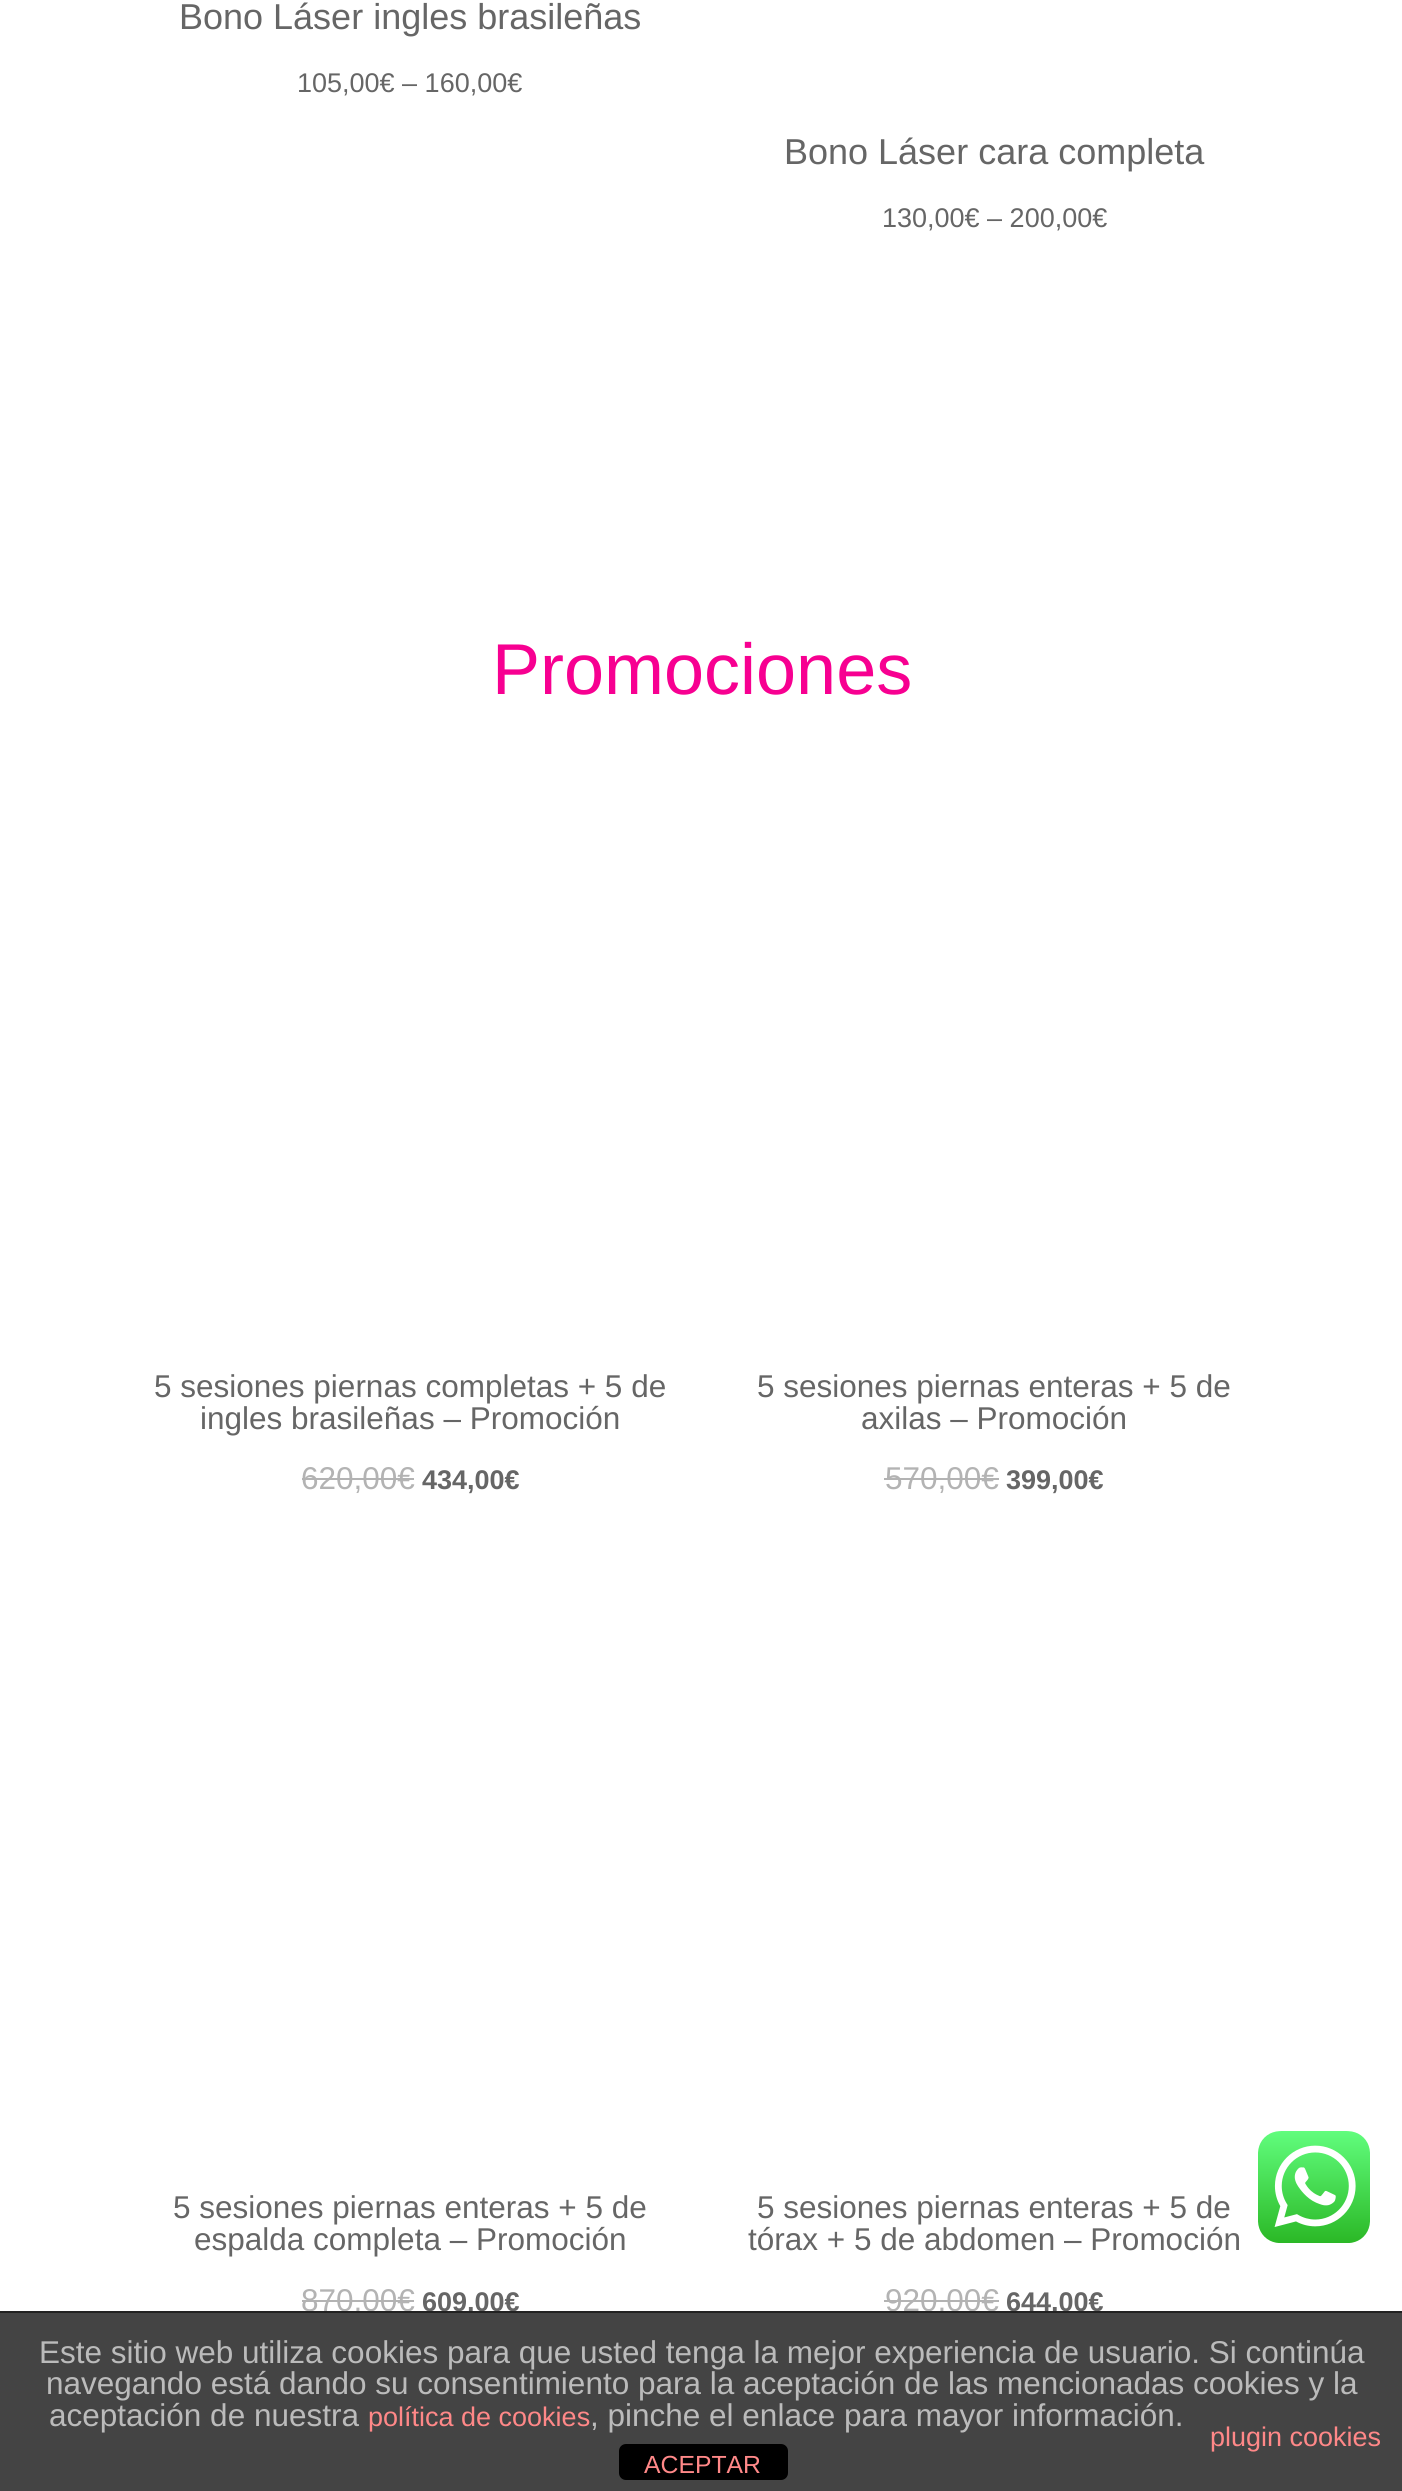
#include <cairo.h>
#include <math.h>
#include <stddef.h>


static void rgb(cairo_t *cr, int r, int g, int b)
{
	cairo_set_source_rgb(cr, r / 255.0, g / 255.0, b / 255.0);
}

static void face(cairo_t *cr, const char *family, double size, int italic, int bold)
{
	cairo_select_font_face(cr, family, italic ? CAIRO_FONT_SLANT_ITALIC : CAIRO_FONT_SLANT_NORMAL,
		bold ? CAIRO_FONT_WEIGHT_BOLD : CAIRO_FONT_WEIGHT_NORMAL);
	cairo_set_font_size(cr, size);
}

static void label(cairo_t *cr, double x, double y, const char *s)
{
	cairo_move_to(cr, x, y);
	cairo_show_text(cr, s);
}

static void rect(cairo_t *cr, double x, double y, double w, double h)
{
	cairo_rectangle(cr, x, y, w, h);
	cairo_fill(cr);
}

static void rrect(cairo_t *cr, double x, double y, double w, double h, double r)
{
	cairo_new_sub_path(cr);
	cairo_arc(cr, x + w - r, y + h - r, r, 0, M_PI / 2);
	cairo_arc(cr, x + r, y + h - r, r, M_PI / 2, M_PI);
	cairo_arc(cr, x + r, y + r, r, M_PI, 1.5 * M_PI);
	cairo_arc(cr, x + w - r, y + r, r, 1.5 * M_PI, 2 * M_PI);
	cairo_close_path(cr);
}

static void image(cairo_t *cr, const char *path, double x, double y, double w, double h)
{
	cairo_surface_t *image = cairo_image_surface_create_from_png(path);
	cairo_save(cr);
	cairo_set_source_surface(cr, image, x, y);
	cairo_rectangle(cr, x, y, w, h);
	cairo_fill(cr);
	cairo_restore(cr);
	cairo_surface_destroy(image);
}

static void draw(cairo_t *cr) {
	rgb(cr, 255, 255, 255);
	cairo_paint(cr);
	face(cr, "Liberation Sans", 36, 0, 0);
	rgb(cr, 102, 102, 102);
	label(cr, 179, 29, "Bono Láser ingles brasileñas");
	face(cr, "Liberation Sans", 27, 0, 0);
	label(cr, 297, 92, "105,00€ – 160,00€");
	face(cr, "Liberation Sans", 36, 0, 0);
	label(cr, 784, 164, "Bono Láser cara completa");
	face(cr, "Liberation Sans", 27, 0, 0);
	label(cr, 882, 227, "130,00€ – 200,00€");
	face(cr, "Liberation Sans", 72, 0, 0);
	rgb(cr, 247, 0, 145);
	label(cr, 492, 694, "Promociones");
	face(cr, "Liberation Sans", 31.5, 0, 0);
	rgb(cr, 102, 102, 102);
	label(cr, 154, 1397, "5 sesiones piernas completas + 5 de");
	label(cr, 200, 1429, "ingles brasileñas – Promoción");
	rgb(cr, 179, 179, 179);
	label(cr, 301, 1489, "620,00€");
	rect(cr, 302, 1478, 112, 2);
	face(cr, "Liberation Sans", 27, 0, 1);
	rgb(cr, 102, 102, 102);
	label(cr, 422, 1489, "434,00€");
	face(cr, "Liberation Sans", 31.5, 0, 0);
	label(cr, 757, 1397, "5 sesiones piernas enteras + 5 de");
	label(cr, 861, 1429, "axilas – Promoción");
	rgb(cr, 179, 179, 179);
	label(cr, 885, 1489, "570,00€");
	rect(cr, 884, 1478, 115, 2);
	face(cr, "Liberation Sans", 27, 0, 1);
	rgb(cr, 102, 102, 102);
	label(cr, 1006, 1489, "399,00€");
	face(cr, "Liberation Sans", 31.5, 0, 0);
	label(cr, 173, 2218, "5 sesiones piernas enteras + 5 de");
	label(cr, 194, 2250, "espalda completa – Promoción");
	rgb(cr, 179, 179, 179);
	label(cr, 301, 2311, "870,00€");
	rect(cr, 302, 2300, 112, 2);
	face(cr, "Liberation Sans", 27, 0, 1);
	rgb(cr, 102, 102, 102);
	label(cr, 422, 2311, "609,00€");
	face(cr, "Liberation Sans", 31.5, 0, 0);
	label(cr, 757, 2218, "5 sesiones piernas enteras + 5 de");
	label(cr, 748, 2250, "tórax + 5 de abdomen – Promoción");
	rgb(cr, 179, 179, 179);
	label(cr, 885, 2311, "920,00€");
	rect(cr, 884, 2300, 115, 2);
	face(cr, "Liberation Sans", 27, 0, 1);
	rgb(cr, 102, 102, 102);
	label(cr, 1006, 2311, "644,00€");
	image(cr, "image0.png", 1258, 2131, 112, 112);
	rgb(cr, 68, 68, 68);
	rect(cr, 0, 2313, 1402, 178);
	rgb(cr, 34, 34, 34);
	rect(cr, 0, 2311, 1402, 2);
	face(cr, "Liberation Sans", 31.5, 0, 0);
	rgb(cr, 187, 187, 187);
	label(cr, 39, 2363, "Este sitio web utiliza cookies para que usted tenga la mejor experiencia de usuario. Si continúa");
	label(cr, 46, 2394, "navegando está dando su consentimiento para la aceptación de las mencionadas cookies y la");
	label(cr, 49, 2426, "aceptación de nuestra");
	face(cr, "Liberation Sans", 27, 0, 0);
	rgb(cr, 255, 136, 136);
	label(cr, 368, 2426, "política de cookies");
	face(cr, "Liberation Sans", 31.5, 0, 0);
	rgb(cr, 187, 187, 187);
	label(cr, 590, 2426, ", pinche el enlace para mayor información.");
	face(cr, "Liberation Sans", 27, 0, 0);
	rgb(cr, 255, 136, 136);
	label(cr, 1210, 2446, "plugin cookies");
	rgb(cr, 0, 0, 0);
	rrect(cr, 619, 2444, 169, 36, 7);
	cairo_fill(cr);
	face(cr, "Liberation Sans", 24.75, 0, 0);
	rgb(cr, 255, 136, 136);
	label(cr, 644, 2473, "ACEPTAR");
}

int main(void) {
	cairo_surface_t *surface = cairo_image_surface_create(CAIRO_FORMAT_RGB24, 1402, 2491);
	cairo_t *cr = cairo_create(surface);
	cairo_font_options_t *options = cairo_font_options_create();
	cairo_font_options_set_hint_metrics(options, CAIRO_HINT_METRICS_OFF);
	cairo_font_options_set_hint_style(options, CAIRO_HINT_STYLE_NONE);
	cairo_set_font_options(cr, options);
	cairo_set_miter_limit(cr, 4);
	draw(cr);
	cairo_surface_write_to_png(surface, "render.png");
	cairo_font_options_destroy(options);
	cairo_destroy(cr);
	cairo_surface_destroy(surface);
	return 0;
}
